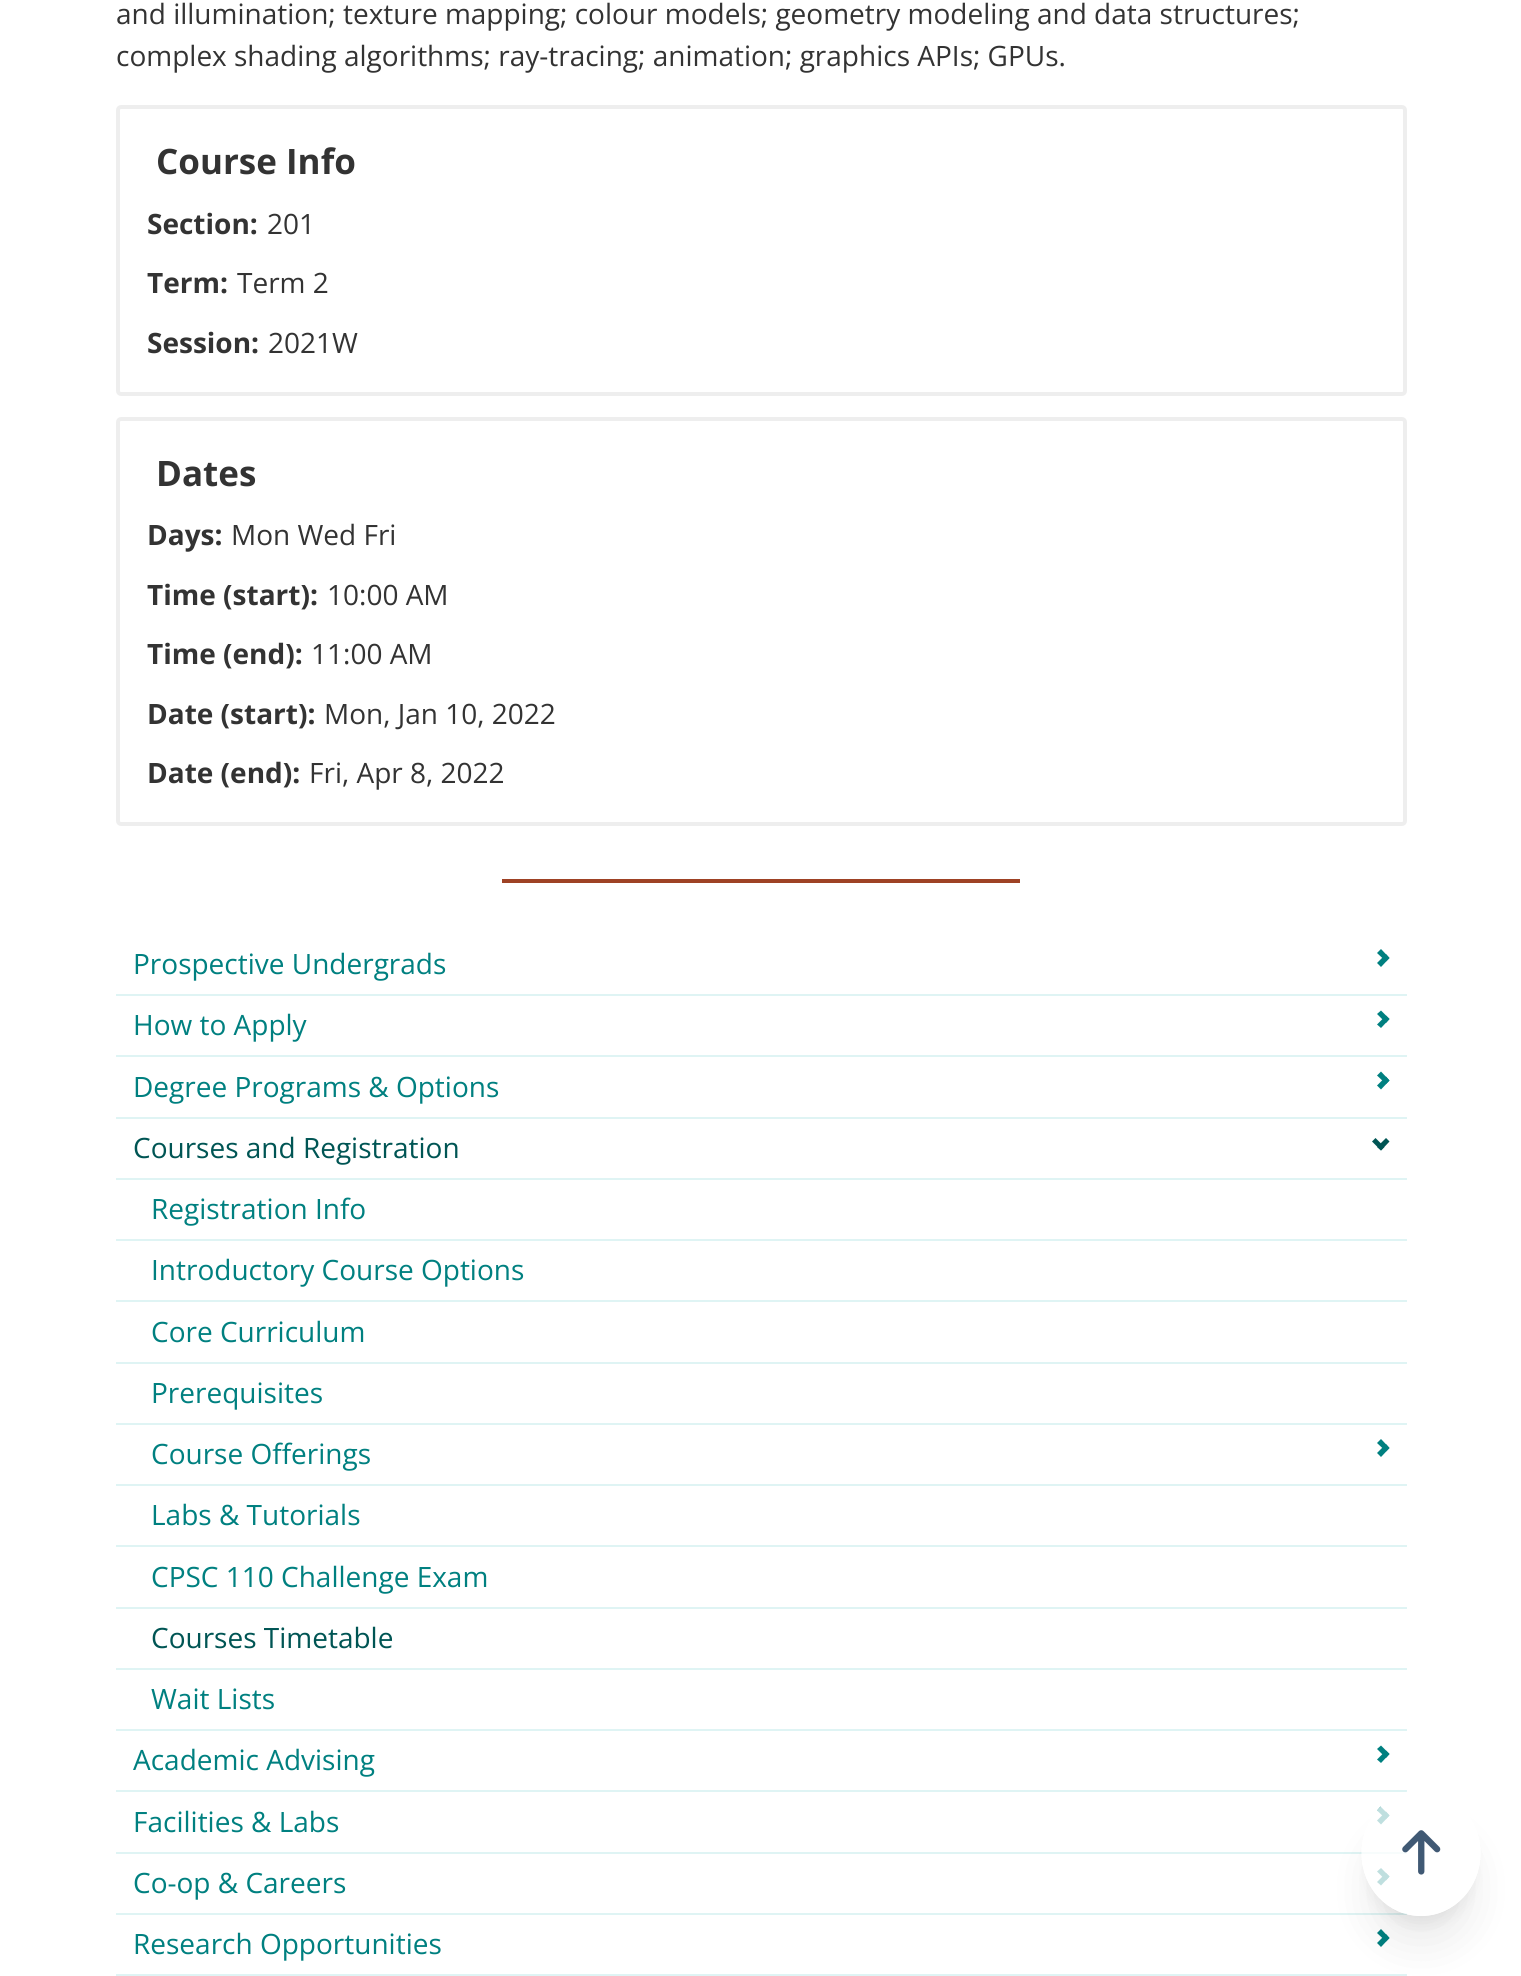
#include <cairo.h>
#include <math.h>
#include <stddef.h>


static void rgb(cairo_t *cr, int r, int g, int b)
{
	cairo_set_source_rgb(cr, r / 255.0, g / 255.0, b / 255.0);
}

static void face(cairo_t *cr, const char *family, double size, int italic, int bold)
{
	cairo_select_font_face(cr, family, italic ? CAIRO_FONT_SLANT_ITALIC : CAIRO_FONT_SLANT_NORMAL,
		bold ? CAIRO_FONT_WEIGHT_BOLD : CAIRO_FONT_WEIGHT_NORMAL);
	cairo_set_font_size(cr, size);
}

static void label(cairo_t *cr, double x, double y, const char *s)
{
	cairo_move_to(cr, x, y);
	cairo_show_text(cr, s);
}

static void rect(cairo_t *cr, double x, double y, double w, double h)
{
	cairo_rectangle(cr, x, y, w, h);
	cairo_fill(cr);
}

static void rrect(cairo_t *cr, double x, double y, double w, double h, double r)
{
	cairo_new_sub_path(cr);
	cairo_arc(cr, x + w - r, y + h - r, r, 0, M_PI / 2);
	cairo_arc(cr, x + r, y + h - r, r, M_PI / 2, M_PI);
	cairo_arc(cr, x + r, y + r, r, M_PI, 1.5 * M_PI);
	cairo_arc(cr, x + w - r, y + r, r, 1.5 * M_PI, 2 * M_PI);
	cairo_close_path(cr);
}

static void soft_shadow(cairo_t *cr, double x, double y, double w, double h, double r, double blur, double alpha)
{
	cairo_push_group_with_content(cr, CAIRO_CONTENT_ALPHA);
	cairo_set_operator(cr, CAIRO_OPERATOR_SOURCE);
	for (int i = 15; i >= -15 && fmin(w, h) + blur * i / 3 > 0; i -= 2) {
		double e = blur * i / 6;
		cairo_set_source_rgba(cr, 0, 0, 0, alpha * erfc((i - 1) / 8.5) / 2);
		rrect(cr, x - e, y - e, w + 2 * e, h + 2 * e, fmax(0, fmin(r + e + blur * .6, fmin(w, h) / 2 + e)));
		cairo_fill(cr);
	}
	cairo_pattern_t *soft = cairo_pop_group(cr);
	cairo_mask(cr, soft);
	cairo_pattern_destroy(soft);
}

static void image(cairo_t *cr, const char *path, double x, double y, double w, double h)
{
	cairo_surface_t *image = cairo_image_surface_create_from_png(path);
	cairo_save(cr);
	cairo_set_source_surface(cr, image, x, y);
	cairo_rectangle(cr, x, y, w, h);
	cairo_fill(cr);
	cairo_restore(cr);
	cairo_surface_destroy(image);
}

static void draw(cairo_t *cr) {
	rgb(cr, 255, 255, 255);
	cairo_paint(cr);
	face(cr, "Open Sans", 28, 0, 0);
	rgb(cr, 51, 51, 51);
	label(cr, 116, 24, "and illumination; texture mapping; colour models; geometry modeling and data structures;");
	label(cr, 116, 66, "complex shading algorithms; ray-tracing; animation; graphics APIs; GPUs.");
	rrect(cr, 118, 107, 1287, 287, 3);
	rgb(cr, 238, 238, 238);
	cairo_set_line_width(cr, 4);
	cairo_stroke(cr);
	face(cr, "Open Sans", 35, 0, 1);
	rgb(cr, 51, 51, 51);
	label(cr, 156, 174, "Course Info");
	face(cr, "Open Sans", 28, 0, 1);
	label(cr, 147, 234, "Section:");
	face(cr, "Open Sans", 28, 0, 0);
	label(cr, 267, 234, "201");
	face(cr, "Open Sans", 28, 0, 1);
	label(cr, 147, 293, "Term:");
	face(cr, "Open Sans", 28, 0, 0);
	label(cr, 237, 293, "Term 2");
	face(cr, "Open Sans", 28, 0, 1);
	label(cr, 147, 353, "Session:");
	face(cr, "Open Sans", 28, 0, 0);
	label(cr, 268, 353, "2021W");
	rrect(cr, 118, 419, 1287, 405, 3);
	rgb(cr, 238, 238, 238);
	cairo_stroke(cr);
	face(cr, "Open Sans", 35, 0, 1);
	rgb(cr, 51, 51, 51);
	label(cr, 156, 486, "Dates");
	face(cr, "Open Sans", 28, 0, 1);
	label(cr, 147, 545, "Days:");
	face(cr, "Open Sans", 28, 0, 0);
	label(cr, 231, 545, "Mon Wed Fri");
	face(cr, "Open Sans", 28, 0, 1);
	label(cr, 147, 605, "Time (start):");
	face(cr, "Open Sans", 28, 0, 0);
	label(cr, 327, 605, "10:00 AM");
	face(cr, "Open Sans", 28, 0, 1);
	label(cr, 147, 664, "Time (end):");
	face(cr, "Open Sans", 28, 0, 0);
	label(cr, 311, 664, "11:00 AM");
	face(cr, "Open Sans", 28, 0, 1);
	label(cr, 147, 724, "Date (start):");
	face(cr, "Open Sans", 28, 0, 0);
	label(cr, 324, 724, "Mon, Jan 10, 2022");
	face(cr, "Open Sans", 28, 0, 1);
	label(cr, 147, 783, "Date (end):");
	face(cr, "Open Sans", 28, 0, 0);
	label(cr, 309, 783, "Fri, Apr 8, 2022");
	rgb(cr, 158, 66, 37);
	rect(cr, 502, 879, 518, 4);
	rgb(cr, 223, 244, 244);
	rect(cr, 116, 994, 1291, 2);
	rgb(cr, 0, 128, 128);
	label(cr, 133, 974, "Prospective Undergrads");
	cairo_new_path(cr);
	cairo_move_to(cr, 1381, 949);
	cairo_line_to(cr, 1389.5, 958);
	cairo_line_to(cr, 1386, 961.5);
	cairo_line_to(cr, 1377, 953);
	cairo_close_path(cr);
	cairo_fill(cr);
	cairo_new_path(cr);
	cairo_move_to(cr, 1386, 954);
	cairo_line_to(cr, 1389.5, 958);
	cairo_line_to(cr, 1381, 967);
	cairo_line_to(cr, 1377, 963);
	cairo_close_path(cr);
	cairo_fill(cr);
	rgb(cr, 223, 244, 244);
	rect(cr, 116, 1055, 1291, 2);
	rgb(cr, 0, 128, 128);
	label(cr, 133, 1035, "How to Apply");
	cairo_new_path(cr);
	cairo_move_to(cr, 1381, 1010.5);
	cairo_line_to(cr, 1389.5, 1019);
	cairo_line_to(cr, 1386, 1023);
	cairo_line_to(cr, 1377, 1014);
	cairo_close_path(cr);
	cairo_fill(cr);
	cairo_new_path(cr);
	cairo_move_to(cr, 1386, 1015.5);
	cairo_line_to(cr, 1389.5, 1019);
	cairo_line_to(cr, 1381, 1028);
	cairo_line_to(cr, 1377, 1024.5);
	cairo_close_path(cr);
	cairo_fill(cr);
	rgb(cr, 223, 244, 244);
	rect(cr, 116, 1117, 1291, 2);
	rgb(cr, 0, 128, 128);
	label(cr, 133, 1097, "Degree Programs & Options");
	cairo_new_path(cr);
	cairo_move_to(cr, 1381, 1071.5);
	cairo_line_to(cr, 1389.5, 1080.5);
	cairo_line_to(cr, 1386, 1084);
	cairo_line_to(cr, 1377, 1075.5);
	cairo_close_path(cr);
	cairo_fill(cr);
	cairo_new_path(cr);
	cairo_move_to(cr, 1386, 1076.5);
	cairo_line_to(cr, 1389.5, 1080.5);
	cairo_line_to(cr, 1381, 1089.5);
	cairo_line_to(cr, 1377, 1085.5);
	cairo_close_path(cr);
	cairo_fill(cr);
	rgb(cr, 223, 244, 244);
	rect(cr, 116, 1178, 1291, 2);
	rgb(cr, 0, 85, 84);
	label(cr, 133, 1158, "Courses and Registration");
	cairo_new_path(cr);
	cairo_move_to(cr, 1389.5, 1141.5);
	cairo_line_to(cr, 1381, 1150.5);
	cairo_line_to(cr, 1377, 1147);
	cairo_line_to(cr, 1386, 1138);
	cairo_close_path(cr);
	cairo_fill(cr);
	cairo_new_path(cr);
	cairo_move_to(cr, 1384.5, 1147);
	cairo_line_to(cr, 1381, 1150.5);
	cairo_line_to(cr, 1372, 1141.5);
	cairo_line_to(cr, 1375.5, 1138);
	cairo_close_path(cr);
	cairo_fill(cr);
	rgb(cr, 223, 244, 244);
	rect(cr, 116, 1239, 1291, 2);
	rgb(cr, 0, 128, 128);
	label(cr, 151, 1219, "Registration Info");
	rgb(cr, 223, 244, 244);
	rect(cr, 116, 1300, 1291, 2);
	rgb(cr, 0, 128, 128);
	label(cr, 151, 1280, "Introductory Course Options");
	rgb(cr, 223, 244, 244);
	rect(cr, 116, 1362, 1291, 2);
	rgb(cr, 0, 128, 128);
	label(cr, 151, 1342, "Core Curriculum");
	rgb(cr, 223, 244, 244);
	rect(cr, 116, 1423, 1291, 2);
	rgb(cr, 0, 128, 128);
	label(cr, 151, 1403, "Prerequisites");
	rgb(cr, 223, 244, 244);
	rect(cr, 116, 1484, 1291, 2);
	rgb(cr, 0, 128, 128);
	label(cr, 151, 1464, "Course Offerings");
	cairo_new_path(cr);
	cairo_move_to(cr, 1381, 1439);
	cairo_line_to(cr, 1389.5, 1448);
	cairo_line_to(cr, 1386, 1451.5);
	cairo_line_to(cr, 1377, 1443);
	cairo_close_path(cr);
	cairo_fill(cr);
	cairo_new_path(cr);
	cairo_move_to(cr, 1386, 1444);
	cairo_line_to(cr, 1389.5, 1448);
	cairo_line_to(cr, 1381, 1457);
	cairo_line_to(cr, 1377, 1453);
	cairo_close_path(cr);
	cairo_fill(cr);
	rgb(cr, 223, 244, 244);
	rect(cr, 116, 1545, 1291, 2);
	rgb(cr, 0, 128, 128);
	label(cr, 151, 1525, "Labs & Tutorials");
	rgb(cr, 223, 244, 244);
	rect(cr, 116, 1607, 1291, 2);
	rgb(cr, 0, 128, 128);
	label(cr, 151, 1587, "CPSC 110 Challenge Exam");
	rgb(cr, 223, 244, 244);
	rect(cr, 116, 1668, 1291, 2);
	rgb(cr, 0, 85, 84);
	label(cr, 151, 1648, "Courses Timetable");
	rgb(cr, 223, 244, 244);
	rect(cr, 116, 1729, 1291, 2);
	rgb(cr, 0, 128, 128);
	label(cr, 151, 1709, "Wait Lists");
	rgb(cr, 223, 244, 244);
	rect(cr, 116, 1790, 1291, 2);
	rgb(cr, 0, 128, 128);
	label(cr, 133, 1770, "Academic Advising");
	cairo_new_path(cr);
	cairo_move_to(cr, 1381, 1745.5);
	cairo_line_to(cr, 1389.5, 1754);
	cairo_line_to(cr, 1386, 1758);
	cairo_line_to(cr, 1377, 1749);
	cairo_close_path(cr);
	cairo_fill(cr);
	cairo_new_path(cr);
	cairo_move_to(cr, 1386, 1750.5);
	cairo_line_to(cr, 1389.5, 1754);
	cairo_line_to(cr, 1381, 1763);
	cairo_line_to(cr, 1377, 1759.5);
	cairo_close_path(cr);
	cairo_fill(cr);
	rgb(cr, 223, 244, 244);
	rect(cr, 116, 1852, 1291, 2);
	rgb(cr, 0, 128, 128);
	label(cr, 133, 1832, "Facilities & Labs");
	cairo_new_path(cr);
	cairo_move_to(cr, 1380.5, 1806.5);
	cairo_line_to(cr, 1389.5, 1815.5);
	cairo_line_to(cr, 1386, 1819);
	cairo_line_to(cr, 1377, 1810.5);
	cairo_close_path(cr);
	cairo_fill(cr);
	cairo_new_path(cr);
	cairo_move_to(cr, 1386, 1811.5);
	cairo_line_to(cr, 1389.5, 1815.5);
	cairo_line_to(cr, 1381, 1824.5);
	cairo_line_to(cr, 1377, 1820.5);
	cairo_close_path(cr);
	cairo_fill(cr);
	rgb(cr, 223, 244, 244);
	rect(cr, 116, 1913, 1291, 2);
	rgb(cr, 0, 128, 128);
	label(cr, 133, 1893, "Co-op & Careers");
	cairo_new_path(cr);
	cairo_move_to(cr, 1381, 1868);
	cairo_line_to(cr, 1389.5, 1876.5);
	cairo_line_to(cr, 1386, 1880.5);
	cairo_line_to(cr, 1377, 1871.5);
	cairo_close_path(cr);
	cairo_fill(cr);
	cairo_new_path(cr);
	cairo_move_to(cr, 1386, 1873);
	cairo_line_to(cr, 1389.5, 1876.5);
	cairo_line_to(cr, 1381, 1885.5);
	cairo_line_to(cr, 1377, 1882);
	cairo_close_path(cr);
	cairo_fill(cr);
	rgb(cr, 223, 244, 244);
	rect(cr, 116, 1974, 1291, 2);
	rgb(cr, 0, 128, 128);
	label(cr, 133, 1954, "Research Opportunities");
	cairo_new_path(cr);
	cairo_move_to(cr, 1381, 1929);
	cairo_line_to(cr, 1389.5, 1938);
	cairo_line_to(cr, 1386, 1941.5);
	cairo_line_to(cr, 1377, 1933);
	cairo_close_path(cr);
	cairo_fill(cr);
	cairo_new_path(cr);
	cairo_move_to(cr, 1386, 1934);
	cairo_line_to(cr, 1389.5, 1938);
	cairo_line_to(cr, 1381, 1947);
	cairo_line_to(cr, 1377, 1943);
	cairo_close_path(cr);
	cairo_fill(cr);
	cairo_save(cr);
	cairo_set_fill_rule(cr, CAIRO_FILL_RULE_EVEN_ODD);
	cairo_new_path(cr);
	cairo_move_to(cr, 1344, 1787);
	cairo_line_to(cr, 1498, 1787);
	cairo_line_to(cr, 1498, 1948);
	cairo_line_to(cr, 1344, 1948);
	cairo_close_path(cr);
	cairo_move_to(cr, 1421, 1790);
	cairo_curve_to(cr, 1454, 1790, 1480.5, 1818.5, 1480.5, 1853);
	cairo_curve_to(cr, 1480.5, 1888, 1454, 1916, 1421, 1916);
	cairo_curve_to(cr, 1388, 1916, 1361.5, 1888, 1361.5, 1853);
	cairo_curve_to(cr, 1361.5, 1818.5, 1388, 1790, 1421, 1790);
	cairo_close_path(cr);
	cairo_clip(cr);
	rgb(cr, 0, 0, 0);
	soft_shadow(cr, 1372, 1815, 98, 105, 49, 9, 0.08);
	cairo_restore(cr);
	cairo_save(cr);
	cairo_set_fill_rule(cr, CAIRO_FILL_RULE_EVEN_ODD);
	cairo_new_path(cr);
	cairo_move_to(cr, 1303, 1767);
	cairo_line_to(cr, 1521, 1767);
	cairo_line_to(cr, 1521, 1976);
	cairo_line_to(cr, 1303, 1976);
	cairo_close_path(cr);
	cairo_move_to(cr, 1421, 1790);
	cairo_curve_to(cr, 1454, 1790, 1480.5, 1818.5, 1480.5, 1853);
	cairo_curve_to(cr, 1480.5, 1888, 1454, 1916, 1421, 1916);
	cairo_curve_to(cr, 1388, 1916, 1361.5, 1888, 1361.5, 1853);
	cairo_curve_to(cr, 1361.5, 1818.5, 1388, 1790, 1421, 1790);
	cairo_close_path(cr);
	cairo_clip(cr);
	rgb(cr, 0, 0, 0);
	soft_shadow(cr, 1370, 1834, 102, 109, 51, 22, 0.08);
	cairo_restore(cr);
	cairo_set_source_rgba(cr, 1, 1, 1, 0.75);
	cairo_new_path(cr);
	cairo_move_to(cr, 1421, 1790);
	cairo_curve_to(cr, 1454, 1790, 1480.5, 1818, 1480.5, 1853);
	cairo_curve_to(cr, 1480.5, 1888, 1454, 1916, 1421, 1916);
	cairo_curve_to(cr, 1388, 1916, 1361.5, 1888, 1361.5, 1853);
	cairo_curve_to(cr, 1361.5, 1818, 1388, 1790, 1421, 1790);
	cairo_close_path(cr);
	cairo_fill(cr);
	image(cr, "image0.png", 1402, 1830, 39, 45);
}

int main(void) {
	cairo_surface_t *surface = cairo_image_surface_create(CAIRO_FORMAT_RGB24, 1521, 1976);
	cairo_t *cr = cairo_create(surface);
	cairo_font_options_t *options = cairo_font_options_create();
	cairo_font_options_set_hint_metrics(options, CAIRO_HINT_METRICS_OFF);
	cairo_font_options_set_hint_style(options, CAIRO_HINT_STYLE_NONE);
	cairo_set_font_options(cr, options);
	cairo_set_miter_limit(cr, 4);
	draw(cr);
	cairo_surface_write_to_png(surface, "render.png");
	cairo_font_options_destroy(options);
	cairo_destroy(cr);
	cairo_surface_destroy(surface);
	return 0;
}
